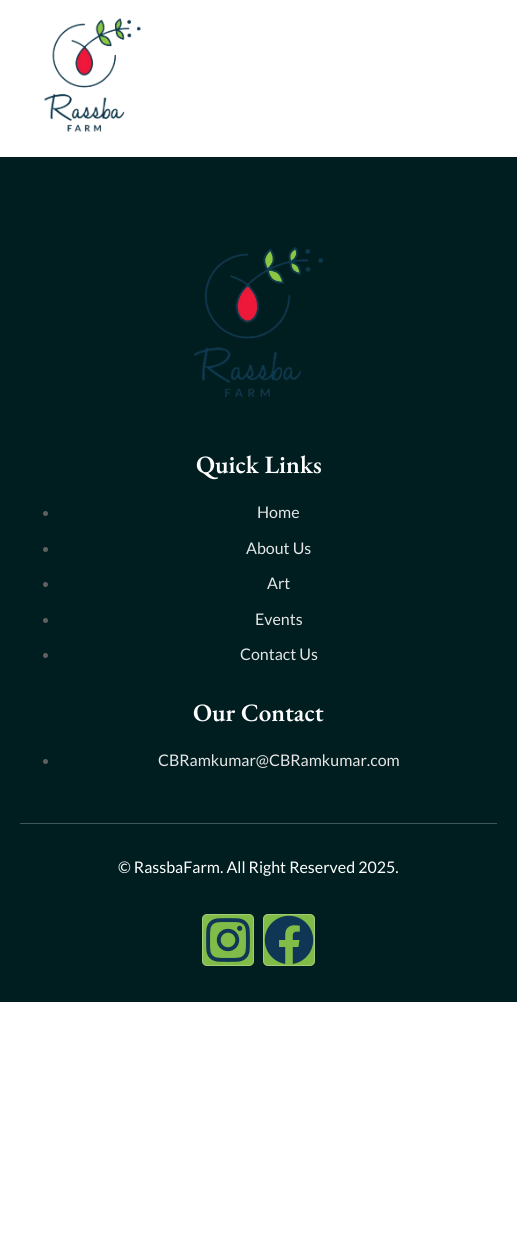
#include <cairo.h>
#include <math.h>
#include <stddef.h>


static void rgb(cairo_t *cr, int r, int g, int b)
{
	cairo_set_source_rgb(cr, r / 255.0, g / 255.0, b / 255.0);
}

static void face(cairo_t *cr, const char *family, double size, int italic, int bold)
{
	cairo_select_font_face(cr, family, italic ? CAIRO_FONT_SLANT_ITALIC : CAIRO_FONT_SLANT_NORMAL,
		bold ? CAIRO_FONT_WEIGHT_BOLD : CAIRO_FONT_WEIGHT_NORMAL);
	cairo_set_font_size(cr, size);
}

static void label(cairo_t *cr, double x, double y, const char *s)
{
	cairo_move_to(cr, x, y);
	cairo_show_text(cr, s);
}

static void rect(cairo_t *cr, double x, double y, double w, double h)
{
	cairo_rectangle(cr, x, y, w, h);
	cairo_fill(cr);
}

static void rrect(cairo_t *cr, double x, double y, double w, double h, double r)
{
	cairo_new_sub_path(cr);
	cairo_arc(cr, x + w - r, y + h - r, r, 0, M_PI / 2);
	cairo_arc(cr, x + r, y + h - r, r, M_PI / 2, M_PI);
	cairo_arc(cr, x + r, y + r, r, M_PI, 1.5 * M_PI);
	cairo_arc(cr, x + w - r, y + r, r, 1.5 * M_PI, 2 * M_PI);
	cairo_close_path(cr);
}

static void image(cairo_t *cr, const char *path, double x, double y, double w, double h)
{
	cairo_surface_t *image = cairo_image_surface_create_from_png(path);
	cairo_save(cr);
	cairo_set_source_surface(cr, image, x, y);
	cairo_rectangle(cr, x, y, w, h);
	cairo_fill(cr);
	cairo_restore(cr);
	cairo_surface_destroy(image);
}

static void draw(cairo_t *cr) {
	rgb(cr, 255, 255, 255);
	cairo_paint(cr);
	image(cr, "image0.png", 44, 18, 97, 114);
	rgb(cr, 0, 29, 32);
	rect(cr, 0, 157, 517, 845);
	image(cr, "image1.png", 194, 247, 129, 150);
	face(cr, "EB Garamond SemiBold", 25, 0, 0);
	rgb(cr, 255, 255, 255);
	label(cr, 196, 473, "Quick Links");
	rgb(cr, 96, 96, 96);
	cairo_new_path(cr);
	cairo_arc(cr, 45.5, 513.5, 2.5, 0, 2 * M_PI);
	cairo_fill(cr);
	face(cr, "Lato", 16, 0, 0);
	rgb(cr, 230, 230, 230);
	label(cr, 257, 518, "Home");
	rgb(cr, 96, 96, 96);
	cairo_new_path(cr);
	cairo_arc(cr, 45.5, 549.5, 2.5, 0, 2 * M_PI);
	cairo_fill(cr);
	rgb(cr, 230, 230, 230);
	label(cr, 246, 554, "About Us");
	rgb(cr, 96, 96, 96);
	cairo_new_path(cr);
	cairo_arc(cr, 45.5, 584.5, 2.5, 0, 2 * M_PI);
	cairo_fill(cr);
	rgb(cr, 230, 230, 230);
	label(cr, 267, 589, "Art");
	rgb(cr, 96, 96, 96);
	cairo_new_path(cr);
	cairo_arc(cr, 45.5, 620.5, 2.5, 0, 2 * M_PI);
	cairo_fill(cr);
	rgb(cr, 230, 230, 230);
	label(cr, 255, 625, "Events");
	rgb(cr, 96, 96, 96);
	cairo_new_path(cr);
	cairo_arc(cr, 45.5, 655.5, 2.5, 0, 2 * M_PI);
	cairo_fill(cr);
	rgb(cr, 230, 230, 230);
	label(cr, 240, 660, "Contact Us");
	face(cr, "EB Garamond SemiBold", 25, 0, 0);
	rgb(cr, 255, 255, 255);
	label(cr, 193, 721, "Our Contact");
	rgb(cr, 96, 96, 96);
	cairo_new_path(cr);
	cairo_arc(cr, 45.5, 761.5, 2.5, 0, 2 * M_PI);
	cairo_fill(cr);
	face(cr, "Lato", 16, 0, 0);
	rgb(cr, 230, 230, 230);
	label(cr, 158, 766, "CBRamkumar@CBRamkumar.com");
	rgb(cr, 64, 86, 88);
	rect(cr, 20, 823, 477, 1);
	rgb(cr, 255, 255, 255);
	label(cr, 118, 873, "© RassbaFarm. All Right Reserved 2025.");
	rgb(cr, 130, 188, 72);
	rrect(cr, 202, 914, 52, 52, 5);
	cairo_fill(cr);
	rrect(cr, 202.5, 914.5, 51, 51, 4.5);
	cairo_set_source_rgba(cr, 1, 1, 1, 0.25);
	cairo_set_line_width(cr, 1);
	cairo_stroke(cr);
	image(cr, "image2.png", 206, 918, 44, 44);
	rgb(cr, 130, 188, 72);
	rrect(cr, 263, 914, 52, 52, 5);
	cairo_fill(cr);
	rrect(cr, 263.5, 914.5, 51, 51, 4.5);
	cairo_set_source_rgba(cr, 1, 1, 1, 0.25);
	cairo_stroke(cr);
	image(cr, "image3.png", 264, 915, 50, 49);
}

int main(void) {
	cairo_surface_t *surface = cairo_image_surface_create(CAIRO_FORMAT_RGB24, 517, 1258);
	cairo_t *cr = cairo_create(surface);
	cairo_font_options_t *options = cairo_font_options_create();
	cairo_font_options_set_hint_metrics(options, CAIRO_HINT_METRICS_OFF);
	cairo_font_options_set_hint_style(options, CAIRO_HINT_STYLE_NONE);
	cairo_set_font_options(cr, options);
	cairo_set_miter_limit(cr, 4);
	draw(cr);
	cairo_surface_write_to_png(surface, "render.png");
	cairo_font_options_destroy(options);
	cairo_destroy(cr);
	cairo_surface_destroy(surface);
	return 0;
}
